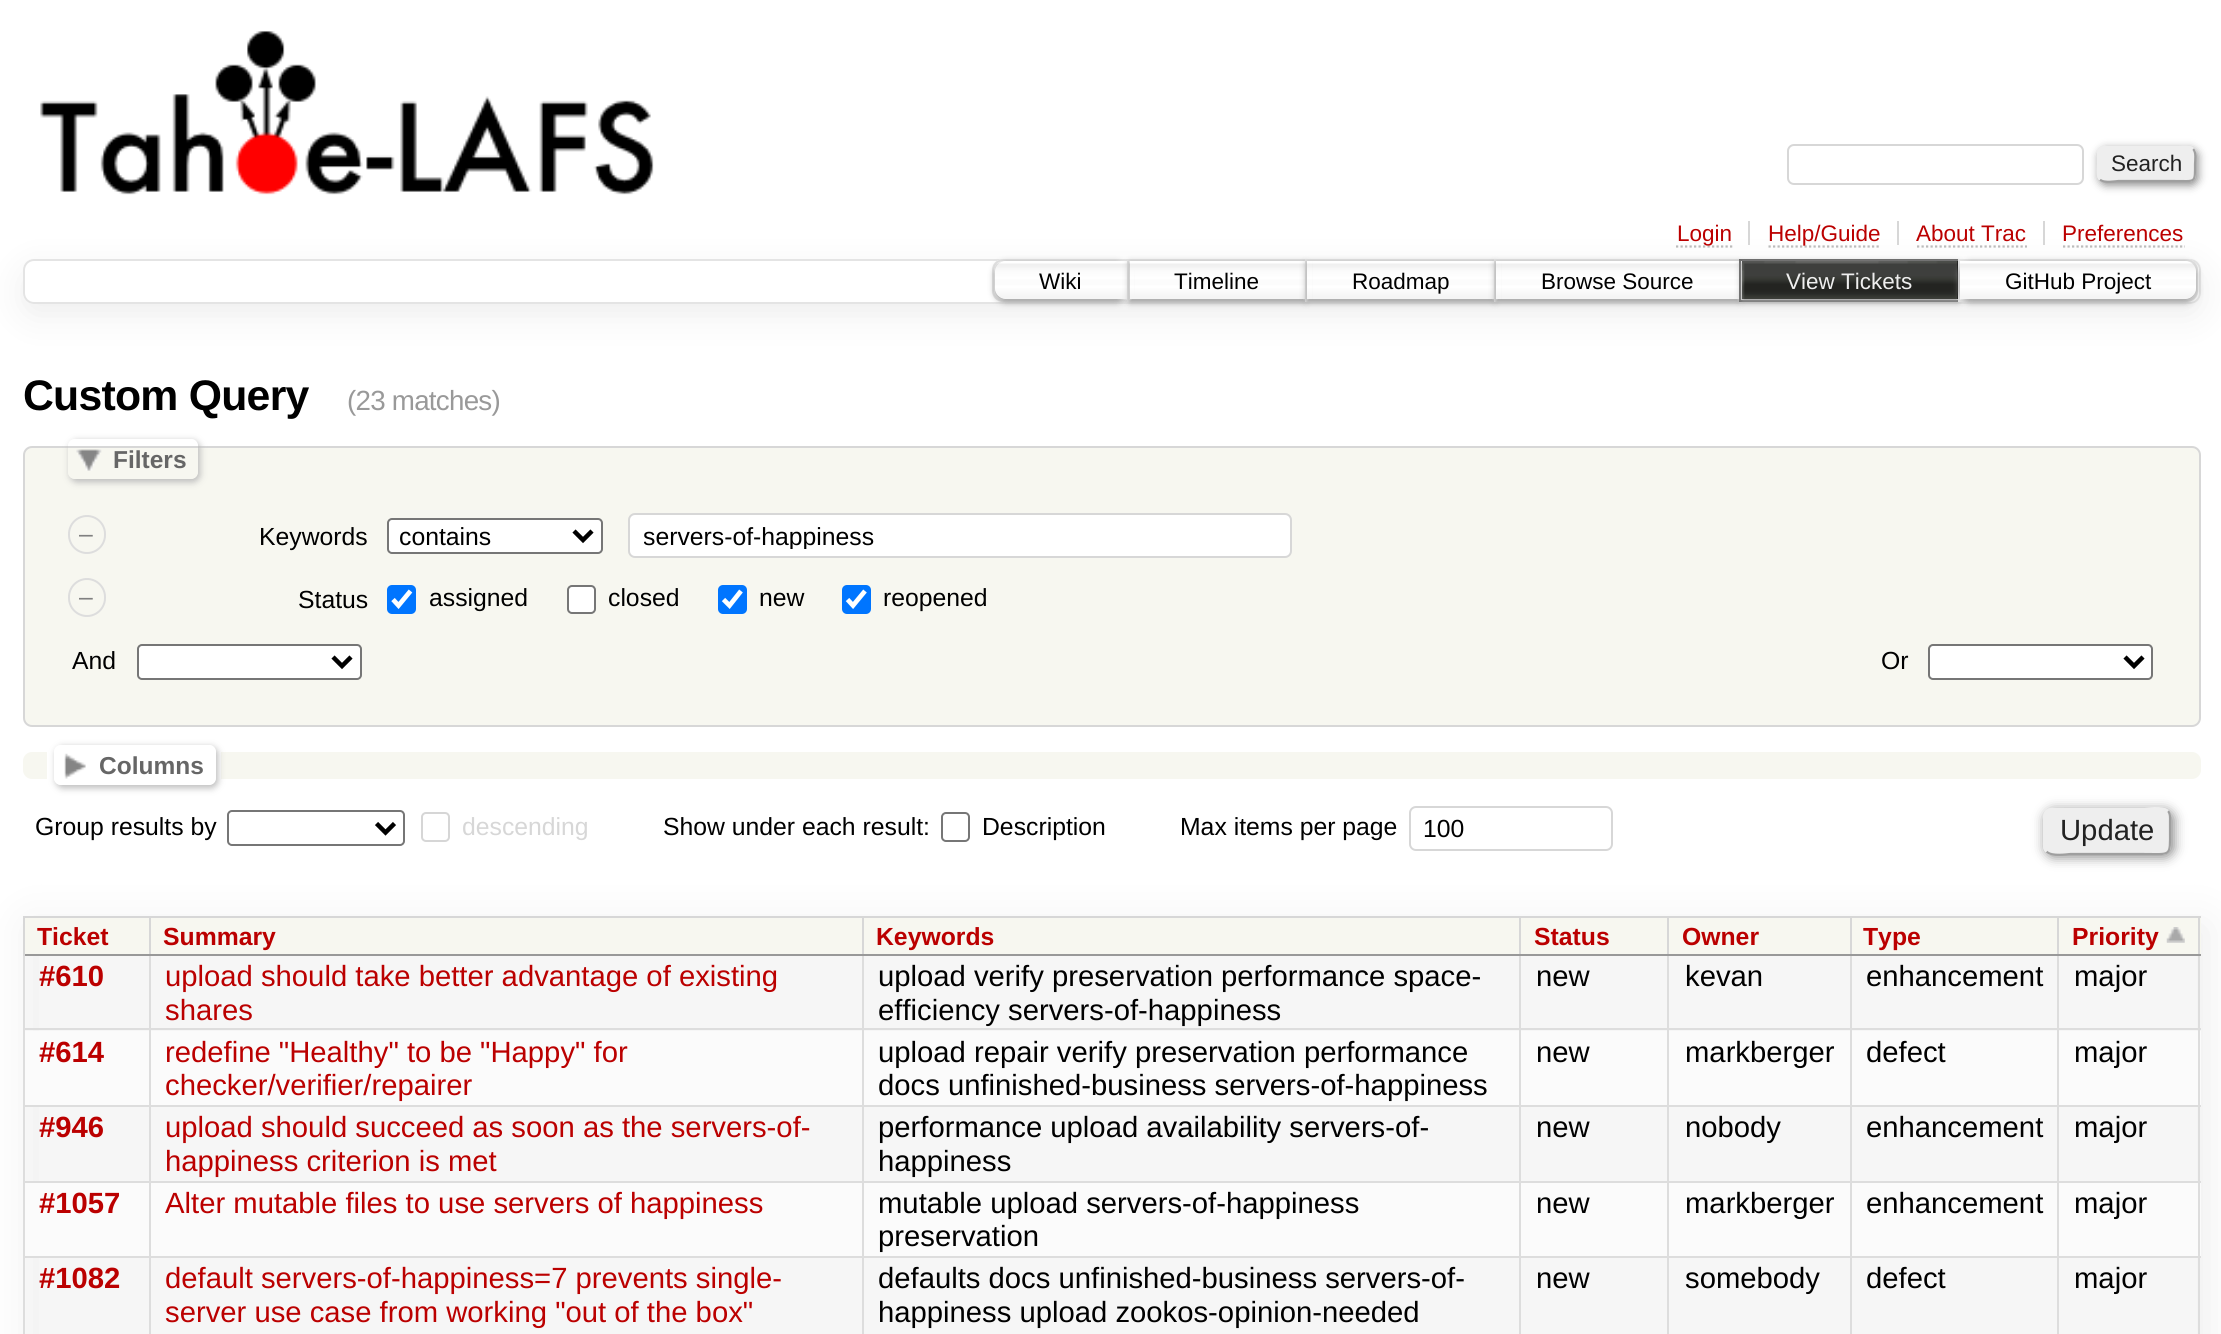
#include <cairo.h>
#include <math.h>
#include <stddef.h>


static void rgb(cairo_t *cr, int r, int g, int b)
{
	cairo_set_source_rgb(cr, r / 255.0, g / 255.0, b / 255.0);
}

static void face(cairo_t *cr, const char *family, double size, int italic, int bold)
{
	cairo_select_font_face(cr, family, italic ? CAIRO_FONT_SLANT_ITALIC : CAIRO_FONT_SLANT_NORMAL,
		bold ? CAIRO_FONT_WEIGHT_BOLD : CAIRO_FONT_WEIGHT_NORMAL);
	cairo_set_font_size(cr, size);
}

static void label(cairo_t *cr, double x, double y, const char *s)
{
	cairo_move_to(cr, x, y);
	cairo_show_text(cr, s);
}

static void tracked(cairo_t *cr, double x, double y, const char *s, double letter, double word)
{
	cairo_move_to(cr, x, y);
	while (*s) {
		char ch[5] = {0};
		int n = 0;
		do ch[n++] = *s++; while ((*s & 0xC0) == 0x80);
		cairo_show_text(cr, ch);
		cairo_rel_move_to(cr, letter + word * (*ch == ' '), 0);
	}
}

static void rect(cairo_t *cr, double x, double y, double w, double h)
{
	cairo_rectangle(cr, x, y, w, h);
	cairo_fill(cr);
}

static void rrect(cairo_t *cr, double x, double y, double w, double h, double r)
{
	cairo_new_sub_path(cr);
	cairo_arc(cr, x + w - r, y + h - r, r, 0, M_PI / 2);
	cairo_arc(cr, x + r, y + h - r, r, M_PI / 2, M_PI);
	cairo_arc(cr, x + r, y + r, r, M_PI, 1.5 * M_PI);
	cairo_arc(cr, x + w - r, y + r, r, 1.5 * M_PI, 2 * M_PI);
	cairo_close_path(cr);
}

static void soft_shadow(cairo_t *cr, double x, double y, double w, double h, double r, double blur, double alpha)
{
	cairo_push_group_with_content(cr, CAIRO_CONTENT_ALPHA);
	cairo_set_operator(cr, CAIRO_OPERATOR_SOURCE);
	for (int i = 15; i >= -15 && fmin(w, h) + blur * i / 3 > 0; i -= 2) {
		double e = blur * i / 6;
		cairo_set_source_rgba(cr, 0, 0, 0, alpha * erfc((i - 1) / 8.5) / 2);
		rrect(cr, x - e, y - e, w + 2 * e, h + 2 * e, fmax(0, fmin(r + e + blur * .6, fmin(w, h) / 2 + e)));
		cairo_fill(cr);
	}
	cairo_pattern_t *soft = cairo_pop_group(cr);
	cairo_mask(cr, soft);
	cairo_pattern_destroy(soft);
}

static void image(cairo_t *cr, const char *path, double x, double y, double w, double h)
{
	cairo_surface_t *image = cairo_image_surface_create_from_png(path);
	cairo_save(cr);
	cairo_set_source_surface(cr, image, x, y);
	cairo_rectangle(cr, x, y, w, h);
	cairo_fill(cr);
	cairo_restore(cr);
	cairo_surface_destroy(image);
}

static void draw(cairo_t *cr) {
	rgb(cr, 255, 255, 255);
	cairo_paint(cr);
	image(cr, "image0.png", 40, 31, 614, 164);
	rrect(cr, 1788, 145, 295, 39, 6);
	rgb(cr, 215, 215, 215);
	cairo_stroke(cr);
	rgb(cr, 136, 136, 136);
	soft_shadow(cr, 2099, 149, 99, 36, 7, 4.5, 1);
	rgb(cr, 238, 238, 238);
	rrect(cr, 2097, 146, 99, 36, 7);
	cairo_fill(cr);
	cairo_new_path(cr);
	cairo_move_to(cr, 2193, 149);
	cairo_curve_to(cr, 2196.5, 152, 2195, 160.5, 2195, 164);
	cairo_curve_to(cr, 2195, 183.5, 2196, 181, 2175, 181);
	cairo_line_to(cr, 2118, 181);
	cairo_curve_to(cr, 2117, 181, 2103.5, 183.5, 2100, 179.5);
	rgb(cr, 159, 159, 159);
	cairo_set_line_width(cr, 2.2);
	cairo_stroke(cr);
	cairo_new_path(cr);
	cairo_move_to(cr, 2100, 179.5);
	cairo_curve_to(cr, 2096.5, 176.5, 2098, 168, 2098, 164);
	cairo_curve_to(cr, 2098, 145, 2097, 147.5, 2118, 147.5);
	cairo_line_to(cr, 2175, 147.5);
	cairo_curve_to(cr, 2176, 147.5, 2189.5, 145, 2193, 149);
	rgb(cr, 238, 238, 238);
	cairo_stroke(cr);
	face(cr, "Liberation Sans", 22.5, 0, 0);
	rgb(cr, 34, 34, 34);
	label(cr, 2111, 171, "Search");
	cairo_save(cr);
	cairo_set_fill_rule(cr, CAIRO_FILL_RULE_EVEN_ODD);
	cairo_new_path(cr);
	cairo_move_to(cr, 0, 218);
	cairo_line_to(cr, 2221, 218);
	cairo_line_to(cr, 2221, 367);
	cairo_line_to(cr, 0, 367);
	cairo_close_path(cr);
	cairo_move_to(cr, 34, 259);
	cairo_line_to(cr, 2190, 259);
	cairo_curve_to(cr, 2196, 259, 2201, 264, 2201, 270);
	cairo_line_to(cr, 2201, 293);
	cairo_curve_to(cr, 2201, 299, 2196, 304, 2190, 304);
	cairo_line_to(cr, 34, 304);
	cairo_curve_to(cr, 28, 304, 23, 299, 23, 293);
	cairo_line_to(cr, 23, 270);
	cairo_curve_to(cr, 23, 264, 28, 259, 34, 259);
	cairo_close_path(cr);
	cairo_clip(cr);
	rgb(cr, 238, 238, 238);
	soft_shadow(cr, 23, 270, 2178, 45, 11, 17, 1);
	cairo_restore(cr);
	rgb(cr, 215, 215, 215);
	rect(cr, 1748, 221, 2, 24);
	cairo_new_path(cr);
	cairo_move_to(cr, 1676, 246.5);
	cairo_line_to(cr, 1732.5, 246.5);
	rgb(cr, 187, 187, 187);
	cairo_set_dash(cr, (double[]){2.25, 2.25}, 2, 0);
	cairo_stroke(cr);
	rgb(cr, 187, 0, 0);
	label(cr, 1677, 241, "Login");
	rgb(cr, 215, 215, 215);
	rect(cr, 1897, 221, 2, 24);
	cairo_new_path(cr);
	cairo_move_to(cr, 1768.5, 246.5);
	cairo_line_to(cr, 1881, 246.5);
	rgb(cr, 187, 187, 187);
	cairo_stroke(cr);
	rgb(cr, 187, 0, 0);
	label(cr, 1768, 241, "Help/Guide");
	rgb(cr, 215, 215, 215);
	rect(cr, 2043, 221, 2, 24);
	rgb(cr, 187, 0, 0);
	label(cr, 1916, 241, "About Trac");
	cairo_new_path(cr);
	cairo_move_to(cr, 1917, 246.5);
	cairo_line_to(cr, 2027, 246.5);
	rgb(cr, 187, 187, 187);
	cairo_stroke(cr);
	rgb(cr, 187, 0, 0);
	label(cr, 2062, 241, "Preferences");
	cairo_new_path(cr);
	cairo_move_to(cr, 2063, 246.5);
	cairo_line_to(cr, 2185, 246.5);
	rgb(cr, 187, 187, 187);
	cairo_stroke(cr);
	rrect(cr, 24, 260, 2176, 43, 10);
	rgb(cr, 228, 228, 228);
	cairo_set_line_width(cr, 2);
	cairo_set_dash(cr, NULL, 0, 0);
	cairo_stroke(cr);
	rgb(cr, 255, 255, 255);
	cairo_new_path(cr);
	cairo_move_to(cr, 1003, 259);
	cairo_line_to(cr, 1130, 259);
	cairo_line_to(cr, 1130, 302);
	cairo_line_to(cr, 1003, 302);
	cairo_curve_to(cr, 997, 302, 992, 297, 992, 291);
	cairo_line_to(cr, 992, 270);
	cairo_curve_to(cr, 992, 264, 997, 259, 1003, 259);
	cairo_close_path(cr);
	cairo_fill(cr);
	image(cr, "image1.png", 993, 263, 134, 37);
	cairo_new_path(cr);
	cairo_move_to(cr, 1003, 260);
	cairo_line_to(cr, 1129, 260);
	cairo_line_to(cr, 1129, 301);
	cairo_line_to(cr, 1003, 301);
	cairo_curve_to(cr, 997.5, 301, 993, 296.5, 993, 291);
	cairo_line_to(cr, 993, 270);
	cairo_curve_to(cr, 993, 264.5, 997.5, 260, 1003, 260);
	cairo_close_path(cr);
	rgb(cr, 228, 228, 228);
	cairo_stroke(cr);
	cairo_save(cr);
	cairo_set_fill_rule(cr, CAIRO_FILL_RULE_EVEN_ODD);
	cairo_new_path(cr);
	cairo_move_to(cr, 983, 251);
	cairo_line_to(cr, 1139, 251);
	cairo_line_to(cr, 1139, 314);
	cairo_line_to(cr, 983, 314);
	cairo_close_path(cr);
	cairo_move_to(cr, 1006, 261);
	cairo_line_to(cr, 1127, 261);
	cairo_line_to(cr, 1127, 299);
	cairo_line_to(cr, 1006, 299);
	cairo_curve_to(cr, 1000, 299, 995, 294, 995, 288);
	cairo_line_to(cr, 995, 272);
	cairo_curve_to(cr, 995, 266, 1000, 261, 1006, 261);
	cairo_close_path(cr);
	cairo_clip(cr);
	rgb(cr, 153, 153, 153);
	soft_shadow(cr, 995, 263, 132, 39, 11, 3.5, 1);
	cairo_restore(cr);
	rgb(cr, 0, 0, 0);
	label(cr, 1039, 289, "Wiki");
	rgb(cr, 255, 255, 255);
	rect(cr, 1129, 261, 5, 39);
	image(cr, "image2.png", 1129, 263, 176, 37);
	cairo_rectangle(cr, 1128, 260, 178, 41);
	rgb(cr, 228, 228, 228);
	cairo_stroke(cr);
	cairo_save(cr);
	cairo_set_fill_rule(cr, CAIRO_FILL_RULE_EVEN_ODD);
	cairo_new_path(cr);
	cairo_move_to(cr, 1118, 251);
	cairo_line_to(cr, 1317, 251);
	cairo_line_to(cr, 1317, 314);
	cairo_line_to(cr, 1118, 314);
	cairo_close_path(cr);
	cairo_move_to(cr, 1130, 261);
	cairo_line_to(cr, 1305, 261);
	cairo_line_to(cr, 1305, 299);
	cairo_line_to(cr, 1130, 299);
	cairo_close_path(cr);
	cairo_clip(cr);
	rgb(cr, 153, 153, 153);
	soft_shadow(cr, 1130, 263, 175, 39, 0, 3.5, 1);
	cairo_restore(cr);
	rgb(cr, 0, 0, 0);
	label(cr, 1174, 289, "Timeline");
	rgb(cr, 255, 255, 255);
	rect(cr, 1307, 261, 5, 39);
	image(cr, "image3.png", 1307, 263, 187, 37);
	cairo_rectangle(cr, 1306, 260, 189, 41);
	rgb(cr, 228, 228, 228);
	cairo_stroke(cr);
	cairo_save(cr);
	cairo_set_fill_rule(cr, CAIRO_FILL_RULE_EVEN_ODD);
	cairo_new_path(cr);
	cairo_move_to(cr, 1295, 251);
	cairo_line_to(cr, 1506, 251);
	cairo_line_to(cr, 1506, 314);
	cairo_line_to(cr, 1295, 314);
	cairo_close_path(cr);
	cairo_move_to(cr, 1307, 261);
	cairo_line_to(cr, 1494, 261);
	cairo_line_to(cr, 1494, 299);
	cairo_line_to(cr, 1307, 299);
	cairo_close_path(cr);
	cairo_clip(cr);
	rgb(cr, 153, 153, 153);
	soft_shadow(cr, 1307, 263, 187, 39, 0, 3.5, 1);
	cairo_restore(cr);
	rgb(cr, 0, 0, 0);
	label(cr, 1352, 289, "Roadmap");
	rgb(cr, 255, 255, 255);
	rect(cr, 1496, 261, 5, 39);
	image(cr, "image4.png", 1496, 263, 243, 37);
	cairo_rectangle(cr, 1495, 260, 246, 41);
	rgb(cr, 228, 228, 228);
	cairo_stroke(cr);
	cairo_save(cr);
	cairo_set_fill_rule(cr, CAIRO_FILL_RULE_EVEN_ODD);
	cairo_new_path(cr);
	cairo_move_to(cr, 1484, 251);
	cairo_line_to(cr, 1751, 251);
	cairo_line_to(cr, 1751, 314);
	cairo_line_to(cr, 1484, 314);
	cairo_close_path(cr);
	cairo_move_to(cr, 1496, 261);
	cairo_line_to(cr, 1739, 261);
	cairo_line_to(cr, 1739, 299);
	cairo_line_to(cr, 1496, 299);
	cairo_close_path(cr);
	cairo_clip(cr);
	rgb(cr, 153, 153, 153);
	soft_shadow(cr, 1496, 263, 243, 39, 0, 3.5, 1);
	cairo_restore(cr);
	rgb(cr, 0, 0, 0);
	label(cr, 1541, 289, "Browse Source");
	rgb(cr, 255, 255, 255);
	rect(cr, 1741, 261, 5, 39);
	image(cr, "image5.png", 1741, 263, 217, 37);
	cairo_rectangle(cr, 1740, 260, 219, 41);
	rgb(cr, 102, 102, 102);
	cairo_stroke(cr);
	rgb(cr, 153, 153, 153);
	soft_shadow(cr, 1742, 263, 216, 39, 0, 3.5, 1);
	rgb(cr, 0, 0, 0);
	rect(cr, 1742, 261, 216, 38);
	image(cr, "image6.png", 1742, 261, 216, 38);
	rgb(cr, 238, 238, 238);
	label(cr, 1786, 289, "View Tickets");
	rgb(cr, 255, 255, 255);
	cairo_new_path(cr);
	cairo_move_to(cr, 1958, 259);
	cairo_line_to(cr, 2187, 259);
	cairo_curve_to(cr, 2193, 259, 2198, 264, 2198, 270);
	cairo_line_to(cr, 2198, 291);
	cairo_curve_to(cr, 2198, 297, 2193, 302, 2187, 302);
	cairo_line_to(cr, 1958, 302);
	cairo_close_path(cr);
	cairo_fill(cr);
	image(cr, "image7.png", 1960, 263, 238, 38);
	cairo_new_path(cr);
	cairo_move_to(cr, 1959, 260);
	cairo_line_to(cr, 2187, 260);
	cairo_curve_to(cr, 2192.5, 260, 2197, 264.5, 2197, 270);
	cairo_line_to(cr, 2197, 291);
	cairo_curve_to(cr, 2197, 296.5, 2192.5, 301, 2187, 301);
	cairo_line_to(cr, 1959, 301);
	cairo_close_path(cr);
	rgb(cr, 228, 228, 228);
	cairo_stroke(cr);
	cairo_save(cr);
	cairo_set_fill_rule(cr, CAIRO_FILL_RULE_EVEN_ODD);
	cairo_new_path(cr);
	cairo_move_to(cr, 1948, 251);
	cairo_line_to(cr, 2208, 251);
	cairo_line_to(cr, 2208, 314);
	cairo_line_to(cr, 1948, 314);
	cairo_close_path(cr);
	cairo_move_to(cr, 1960, 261);
	cairo_line_to(cr, 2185, 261);
	cairo_curve_to(cr, 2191, 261, 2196, 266, 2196, 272);
	cairo_line_to(cr, 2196, 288);
	cairo_curve_to(cr, 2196, 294, 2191, 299, 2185, 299);
	cairo_line_to(cr, 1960, 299);
	cairo_close_path(cr);
	cairo_clip(cr);
	rgb(cr, 153, 153, 153);
	soft_shadow(cr, 1960, 263, 236, 39, 11, 3.5, 1);
	cairo_restore(cr);
	rgb(cr, 0, 0, 0);
	label(cr, 2005, 289, "GitHub Project");
	face(cr, "Liberation Sans", 42.75, 0, 1);
	tracked(cr, 23, 410, "Custom Query", -0.75, 0);
	face(cr, "Liberation Sans", 27.75, 0, 0);
	rgb(cr, 153, 153, 153);
	tracked(cr, 347, 410, "(23 matches)", -0.75, 0);
	rgb(cr, 247, 247, 240);
	rrect(cr, 24, 447, 2176, 279, 8);
	cairo_fill_preserve(cr);
	rgb(cr, 215, 215, 215);
	cairo_stroke(cr);
	cairo_save(cr);
	cairo_set_fill_rule(cr, CAIRO_FILL_RULE_EVEN_ODD);
	cairo_new_path(cr);
	cairo_move_to(cr, 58, 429);
	cairo_line_to(cr, 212, 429);
	cairo_line_to(cr, 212, 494);
	cairo_line_to(cr, 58, 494);
	cairo_close_path(cr);
	cairo_move_to(cr, 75, 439);
	cairo_line_to(cr, 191, 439);
	cairo_curve_to(cr, 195, 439, 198, 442, 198, 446);
	cairo_line_to(cr, 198, 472);
	cairo_curve_to(cr, 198, 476, 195, 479, 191, 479);
	cairo_line_to(cr, 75, 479);
	cairo_curve_to(cr, 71, 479, 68, 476, 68, 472);
	cairo_line_to(cr, 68, 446);
	cairo_curve_to(cr, 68, 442, 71, 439, 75, 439);
	cairo_close_path(cr);
	cairo_clip(cr);
	rgb(cr, 187, 187, 187);
	soft_shadow(cr, 70, 441, 130, 41, 7, 3.5, 1);
	cairo_restore(cr);
	image(cr, "image8.png", 76, 449, 26, 22);
	face(cr, "Liberation Sans", 24.5, 0, 1);
	rgb(cr, 102, 102, 102);
	label(cr, 113, 468, "Filters");
	rrect(cr, 69, 516, 36, 37, 18);
	rgb(cr, 221, 221, 221);
	cairo_stroke(cr);
	face(cr, "Liberation Sans", 24.75, 0, 0);
	rgb(cr, 128, 128, 128);
	label(cr, 79, 542, "–");
	rgb(cr, 0, 0, 0);
	label(cr, 259, 545, "Keywords");
	rgb(cr, 255, 255, 255);
	rrect(cr, 388, 519, 214, 34, 4);
	cairo_fill_preserve(cr);
	rgb(cr, 118, 118, 118);
	cairo_stroke(cr);
	cairo_new_path(cr);
	cairo_move_to(cr, 574, 531);
	cairo_line_to(cr, 583, 540);
	cairo_line_to(cr, 592, 531);
	rgb(cr, 0, 0, 0);
	cairo_set_line_width(cr, 4.5);
	cairo_stroke(cr);
	label(cr, 399, 545, "contains");
	rgb(cr, 255, 255, 255);
	rrect(cr, 629, 514, 662, 43, 6);
	cairo_fill_preserve(cr);
	rgb(cr, 215, 215, 215);
	cairo_set_line_width(cr, 2);
	cairo_stroke(cr);
	cairo_save(cr);
	cairo_rectangle(cr, 644, 522, 634, 27);
	cairo_clip(cr);
	rgb(cr, 0, 0, 0);
	label(cr, 643, 545, "servers-of-happiness");
	cairo_restore(cr);
	rrect(cr, 69, 579, 36, 37, 18);
	rgb(cr, 221, 221, 221);
	cairo_stroke(cr);
	rgb(cr, 128, 128, 128);
	label(cr, 79, 605, "–");
	rgb(cr, 0, 0, 0);
	label(cr, 298, 608, "Status");
	rgb(cr, 0, 117, 255);
	rrect(cr, 387, 585, 29, 29, 5);
	cairo_fill(cr);
	cairo_new_path(cr);
	cairo_move_to(cr, 393, 599.5);
	cairo_line_to(cr, 398.5, 605.5);
	cairo_line_to(cr, 410.5, 591);
	rgb(cr, 255, 255, 255);
	cairo_set_line_width(cr, 4.7);
	cairo_stroke(cr);
	rgb(cr, 0, 0, 0);
	label(cr, 429, 606, "assigned");
	rgb(cr, 255, 255, 255);
	rrect(cr, 568, 586, 27, 27, 4);
	cairo_fill_preserve(cr);
	rgb(cr, 118, 118, 118);
	cairo_set_line_width(cr, 2);
	cairo_stroke(cr);
	rgb(cr, 0, 0, 0);
	label(cr, 608, 606, "closed");
	rgb(cr, 0, 117, 255);
	rrect(cr, 718, 585, 29, 29, 5);
	cairo_fill(cr);
	cairo_new_path(cr);
	cairo_move_to(cr, 723.5, 599.5);
	cairo_line_to(cr, 729.5, 605.5);
	cairo_line_to(cr, 741, 591);
	rgb(cr, 255, 255, 255);
	cairo_set_line_width(cr, 4.7);
	cairo_stroke(cr);
	rgb(cr, 0, 0, 0);
	label(cr, 759, 606, "new");
	rgb(cr, 0, 117, 255);
	rrect(cr, 842, 585, 29, 29, 5);
	cairo_fill(cr);
	cairo_new_path(cr);
	cairo_move_to(cr, 847.5, 599.5);
	cairo_line_to(cr, 853, 605.5);
	cairo_line_to(cr, 865, 591);
	rgb(cr, 255, 255, 255);
	cairo_stroke(cr);
	rgb(cr, 0, 0, 0);
	label(cr, 883, 606, "reopened");
	label(cr, 72, 669, "And");
	rgb(cr, 255, 255, 255);
	rrect(cr, 138, 645, 223, 34, 4);
	cairo_fill_preserve(cr);
	rgb(cr, 118, 118, 118);
	cairo_set_line_width(cr, 2);
	cairo_stroke(cr);
	cairo_new_path(cr);
	cairo_move_to(cr, 333, 657);
	cairo_line_to(cr, 342, 666);
	cairo_line_to(cr, 351, 657);
	rgb(cr, 0, 0, 0);
	cairo_set_line_width(cr, 4.5);
	cairo_stroke(cr);
	label(cr, 1881, 669, "Or");
	rgb(cr, 255, 255, 255);
	rrect(cr, 1929, 645, 223, 34, 4);
	cairo_fill_preserve(cr);
	rgb(cr, 118, 118, 118);
	cairo_set_line_width(cr, 2);
	cairo_stroke(cr);
	cairo_new_path(cr);
	cairo_move_to(cr, 2125, 657);
	cairo_line_to(cr, 2134, 666);
	cairo_line_to(cr, 2143, 657);
	rgb(cr, 0, 0, 0);
	cairo_set_line_width(cr, 4.5);
	cairo_stroke(cr);
	rgb(cr, 247, 247, 240);
	rrect(cr, 23, 752, 2178, 27, 9);
	cairo_fill(cr);
	rgb(cr, 255, 255, 255);
	rect(cr, 47, 752, 174, 27);
	cairo_save(cr);
	cairo_set_fill_rule(cr, CAIRO_FILL_RULE_EVEN_ODD);
	cairo_new_path(cr);
	cairo_move_to(cr, 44, 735);
	cairo_line_to(cr, 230, 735);
	cairo_line_to(cr, 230, 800);
	cairo_line_to(cr, 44, 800);
	cairo_close_path(cr);
	cairo_move_to(cr, 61, 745);
	cairo_line_to(cr, 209, 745);
	cairo_curve_to(cr, 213, 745, 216, 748, 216, 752);
	cairo_line_to(cr, 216, 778);
	cairo_curve_to(cr, 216, 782, 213, 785, 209, 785);
	cairo_line_to(cr, 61, 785);
	cairo_curve_to(cr, 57, 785, 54, 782, 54, 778);
	cairo_line_to(cr, 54, 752);
	cairo_curve_to(cr, 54, 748, 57, 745, 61, 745);
	cairo_close_path(cr);
	cairo_clip(cr);
	rgb(cr, 187, 187, 187);
	soft_shadow(cr, 56, 747, 162, 41, 7, 3.5, 1);
	cairo_restore(cr);
	image(cr, "image9.png", 64, 753, 22, 26);
	face(cr, "Liberation Sans", 24.5, 0, 1);
	rgb(cr, 102, 102, 102);
	label(cr, 99, 774, "Columns");
	face(cr, "Liberation Sans", 24.75, 0, 0);
	rgb(cr, 0, 0, 0);
	label(cr, 35, 835, "Group results by");
	rrect(cr, 228, 811, 176, 34, 4);
	rgb(cr, 118, 118, 118);
	cairo_set_line_width(cr, 2);
	cairo_stroke(cr);
	cairo_new_path(cr);
	cairo_move_to(cr, 376.5, 823.5);
	cairo_line_to(cr, 385.5, 832.5);
	cairo_line_to(cr, 394.5, 823.5);
	rgb(cr, 0, 0, 0);
	cairo_set_line_width(cr, 4.5);
	cairo_stroke(cr);
	rrect(cr, 422, 813, 27, 28, 4);
	rgb(cr, 214, 214, 214);
	cairo_set_line_width(cr, 2);
	cairo_stroke(cr);
	rgb(cr, 215, 215, 215);
	label(cr, 462, 835, "descending");
	rgb(cr, 0, 0, 0);
	label(cr, 663, 835, "Show under each result:");
	rrect(cr, 942, 813, 27, 28, 4);
	rgb(cr, 118, 118, 118);
	cairo_stroke(cr);
	rgb(cr, 0, 0, 0);
	label(cr, 982, 835, "Description");
	label(cr, 1180, 835, "Max items per page");
	rrect(cr, 1410, 807, 202, 43, 6);
	rgb(cr, 215, 215, 215);
	cairo_stroke(cr);
	rgb(cr, 0, 0, 0);
	label(cr, 1423, 837, "100");
	rgb(cr, 136, 136, 136);
	soft_shadow(cr, 2045, 810, 129, 47, 9, 6, 1);
	rgb(cr, 238, 238, 238);
	rrect(cr, 2043, 808, 128, 47, 9);
	cairo_fill(cr);
	cairo_new_path(cr);
	cairo_move_to(cr, 2168, 811);
	cairo_curve_to(cr, 2170.5, 814, 2170, 818, 2170, 821.5);
	cairo_line_to(cr, 2170, 831.5);
	cairo_curve_to(cr, 2170, 857, 2171.5, 854, 2144, 854);
	cairo_line_to(cr, 2070, 854);
	cairo_curve_to(cr, 2068.5, 854, 2051.5, 857, 2046.5, 851.5);
	rgb(cr, 159, 159, 159);
	cairo_set_line_width(cr, 2.2);
	cairo_stroke(cr);
	cairo_new_path(cr);
	cairo_move_to(cr, 2046.5, 851.5);
	cairo_curve_to(cr, 2043.5, 849, 2044, 845, 2044, 841.5);
	cairo_line_to(cr, 2044, 831.5);
	cairo_curve_to(cr, 2044, 805.5, 2043, 809, 2070, 809);
	cairo_line_to(cr, 2144, 809);
	cairo_curve_to(cr, 2146, 809, 2162.5, 806, 2168, 811);
	rgb(cr, 238, 238, 238);
	cairo_stroke(cr);
	face(cr, "Liberation Sans", 29.25, 0, 0);
	rgb(cr, 34, 34, 34);
	label(cr, 2060, 840, "Update");
	rgb(cr, 238, 238, 238);
	soft_shadow(cr, 29, 925, 2178, 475, 0, 22, 1);
	rgb(cr, 247, 247, 240);
	rect(cr, 25, 918, 2176, 36);
	rgb(cr, 215, 215, 215);
	rect(cr, 2057, 916, 144, 2);
	rgb(cr, 251, 251, 251);
	rect(cr, 25, 1031, 2176, 74);
	rgb(cr, 221, 221, 221);
	rect(cr, 23, 1105, 2178, 2);
	rgb(cr, 246, 246, 246);
	rect(cr, 39, 956, 2158, 75);
	rgb(cr, 221, 221, 221);
	rect(cr, 2057, 1028, 144, 2);
	rgb(cr, 251, 251, 251);
	rect(cr, 25, 1183, 2176, 73);
	rgb(cr, 221, 221, 221);
	rect(cr, 23, 1256, 2178, 2);
	rect(cr, 2057, 1181, 144, 2);
	rect(cr, 2198, 1256, 2, 78);
	rect(cr, 2198, 1105, 2, 153);
	rect(cr, 2198, 954, 2, 153);
	rgb(cr, 215, 215, 215);
	rect(cr, 2198, 916, 2, 40);
	rgb(cr, 246, 246, 246);
	rect(cr, 39, 1107, 2158, 74);
	rect(cr, 39, 1258, 2158, 76);
	rgb(cr, 221, 221, 221);
	rect(cr, 2057, 1256, 2, 78);
	rect(cr, 2057, 1181, 2, 77);
	rect(cr, 1850, 1181, 209, 2);
	rect(cr, 2057, 1105, 2, 79);
	rect(cr, 2057, 1028, 2, 79);
	rect(cr, 1850, 1028, 209, 2);
	rect(cr, 2057, 954, 2, 77);
	rgb(cr, 153, 153, 153);
	rect(cr, 2057, 954, 144, 2);
	rgb(cr, 215, 215, 215);
	rect(cr, 2057, 916, 2, 40);
	rect(cr, 1850, 916, 209, 2);
	rgb(cr, 221, 221, 221);
	rect(cr, 1850, 1256, 2, 78);
	rect(cr, 1850, 1181, 2, 77);
	rect(cr, 1667, 1181, 185, 2);
	rect(cr, 1850, 1105, 2, 79);
	rect(cr, 1850, 1028, 2, 79);
	rect(cr, 1667, 1028, 185, 2);
	rect(cr, 1850, 954, 2, 77);
	rgb(cr, 153, 153, 153);
	rect(cr, 1850, 954, 209, 2);
	rgb(cr, 215, 215, 215);
	rect(cr, 1850, 916, 2, 40);
	rect(cr, 1667, 916, 185, 2);
	rgb(cr, 221, 221, 221);
	rect(cr, 1667, 1256, 2, 78);
	rect(cr, 1667, 1181, 2, 77);
	rect(cr, 1519, 1181, 151, 2);
	rect(cr, 1667, 1105, 2, 79);
	rect(cr, 1667, 1028, 2, 79);
	rect(cr, 1519, 1028, 151, 2);
	rect(cr, 1667, 954, 2, 77);
	rgb(cr, 153, 153, 153);
	rect(cr, 1667, 954, 185, 2);
	rgb(cr, 215, 215, 215);
	rect(cr, 1667, 916, 2, 40);
	rect(cr, 1519, 916, 151, 2);
	rgb(cr, 221, 221, 221);
	rect(cr, 1519, 1256, 2, 78);
	rect(cr, 1519, 1181, 2, 77);
	rect(cr, 862, 1181, 659, 2);
	rect(cr, 1519, 1105, 2, 79);
	rect(cr, 1519, 1028, 2, 79);
	rect(cr, 862, 1028, 659, 2);
	rect(cr, 1519, 954, 2, 77);
	rgb(cr, 153, 153, 153);
	rect(cr, 1519, 954, 151, 2);
	rgb(cr, 215, 215, 215);
	rect(cr, 1519, 916, 2, 40);
	rect(cr, 862, 916, 659, 2);
	rgb(cr, 221, 221, 221);
	rect(cr, 862, 1256, 2, 78);
	rect(cr, 862, 1181, 2, 77);
	rect(cr, 149, 1181, 715, 2);
	rect(cr, 862, 1105, 2, 79);
	rect(cr, 862, 1028, 2, 79);
	rect(cr, 149, 1028, 715, 2);
	rect(cr, 862, 954, 2, 77);
	rgb(cr, 153, 153, 153);
	rect(cr, 862, 954, 659, 2);
	rgb(cr, 215, 215, 215);
	rect(cr, 862, 916, 2, 40);
	rect(cr, 149, 916, 715, 2);
	rgb(cr, 221, 221, 221);
	rect(cr, 149, 1256, 2, 78);
	rect(cr, 149, 1181, 2, 77);
	rect(cr, 23, 1181, 128, 2);
	rect(cr, 149, 1105, 2, 79);
	rect(cr, 149, 1028, 2, 79);
	rect(cr, 23, 1028, 128, 2);
	rect(cr, 149, 954, 2, 77);
	rgb(cr, 153, 153, 153);
	rect(cr, 149, 954, 715, 2);
	rgb(cr, 215, 215, 215);
	rect(cr, 149, 916, 2, 40);
	rect(cr, 23, 916, 128, 2);
	rgb(cr, 221, 221, 221);
	rect(cr, 23, 1256, 2, 78);
	rect(cr, 23, 1105, 2, 153);
	rect(cr, 23, 954, 2, 153);
	rgb(cr, 153, 153, 153);
	rect(cr, 23, 954, 128, 2);
	rgb(cr, 215, 215, 215);
	rect(cr, 23, 916, 2, 40);
	face(cr, "Liberation Sans", 24.75, 0, 1);
	rgb(cr, 187, 0, 0);
	label(cr, 37, 945, "Ticket");
	label(cr, 163, 945, "Summary");
	label(cr, 876, 945, "Keywords");
	label(cr, 1534, 945, "Status");
	label(cr, 1682, 945, "Owner");
	label(cr, 1863, 945, "Type");
	label(cr, 2072, 945, "Priority");
	image(cr, "image10.png", 2166, 927, 19, 16);
	face(cr, "Liberation Sans", 29.25, 0, 1);
	label(cr, 39, 986, "#610");
	face(cr, "Liberation Sans", 29.25, 0, 0);
	label(cr, 165, 986, "upload should take better advantage of existing");
	label(cr, 165, 1020, "shares");
	rgb(cr, 0, 0, 0);
	label(cr, 878, 986, "upload verify preservation performance space-");
	label(cr, 878, 1020, "efficiency servers-of-happiness");
	label(cr, 1536, 986, "new");
	label(cr, 1685, 986, "kevan");
	label(cr, 1866, 986, "enhancement");
	label(cr, 2074, 986, "major");
	face(cr, "Liberation Sans", 29.25, 0, 1);
	rgb(cr, 187, 0, 0);
	label(cr, 39, 1062, "#614");
	face(cr, "Liberation Sans", 29.25, 0, 0);
	label(cr, 165, 1062, "redefine \"Healthy\" to be \"Happy\" for");
	label(cr, 165, 1095, "checker/verifier/repairer");
	rgb(cr, 0, 0, 0);
	label(cr, 878, 1062, "upload repair verify preservation performance");
	label(cr, 878, 1095, "docs unfinished-business servers-of-happiness");
	label(cr, 1536, 1062, "new");
	label(cr, 1685, 1062, "markberger");
	label(cr, 1866, 1062, "defect");
	label(cr, 2074, 1062, "major");
	face(cr, "Liberation Sans", 29.25, 0, 1);
	rgb(cr, 187, 0, 0);
	label(cr, 39, 1137, "#946");
	face(cr, "Liberation Sans", 29.25, 0, 0);
	label(cr, 165, 1137, "upload should succeed as soon as the servers-of-");
	label(cr, 165, 1171, "happiness criterion is met");
	rgb(cr, 0, 0, 0);
	label(cr, 878, 1137, "performance upload availability servers-of-");
	label(cr, 878, 1171, "happiness");
	label(cr, 1536, 1137, "new");
	label(cr, 1685, 1137, "nobody");
	label(cr, 1866, 1137, "enhancement");
	label(cr, 2074, 1137, "major");
	face(cr, "Liberation Sans", 29.25, 0, 1);
	rgb(cr, 187, 0, 0);
	label(cr, 39, 1213, "#1057");
	face(cr, "Liberation Sans", 29.25, 0, 0);
	label(cr, 165, 1213, "Alter mutable files to use servers of happiness");
	rgb(cr, 0, 0, 0);
	label(cr, 878, 1213, "mutable upload servers-of-happiness");
	label(cr, 878, 1246, "preservation");
	label(cr, 1536, 1213, "new");
	label(cr, 1685, 1213, "markberger");
	label(cr, 1866, 1213, "enhancement");
	label(cr, 2074, 1213, "major");
	face(cr, "Liberation Sans", 29.25, 0, 1);
	rgb(cr, 187, 0, 0);
	label(cr, 39, 1288, "#1082");
	face(cr, "Liberation Sans", 29.25, 0, 0);
	label(cr, 165, 1288, "default servers-of-happiness=7 prevents single-");
	label(cr, 165, 1322, "server use case from working \"out of the box\"");
	rgb(cr, 0, 0, 0);
	label(cr, 878, 1288, "defaults docs unfinished-business servers-of-");
	label(cr, 878, 1322, "happiness upload zookos-opinion-needed");
	label(cr, 1536, 1288, "new");
	label(cr, 1685, 1288, "somebody");
	label(cr, 1866, 1288, "defect");
	label(cr, 2074, 1288, "major");
}

int main(void) {
	cairo_surface_t *surface = cairo_image_surface_create(CAIRO_FORMAT_RGB24, 2221, 1334);
	cairo_t *cr = cairo_create(surface);
	cairo_font_options_t *options = cairo_font_options_create();
	cairo_font_options_set_hint_metrics(options, CAIRO_HINT_METRICS_OFF);
	cairo_font_options_set_hint_style(options, CAIRO_HINT_STYLE_NONE);
	cairo_set_font_options(cr, options);
	cairo_set_miter_limit(cr, 4);
	draw(cr);
	cairo_surface_write_to_png(surface, "render.png");
	cairo_font_options_destroy(options);
	cairo_destroy(cr);
	cairo_surface_destroy(surface);
	return 0;
}
